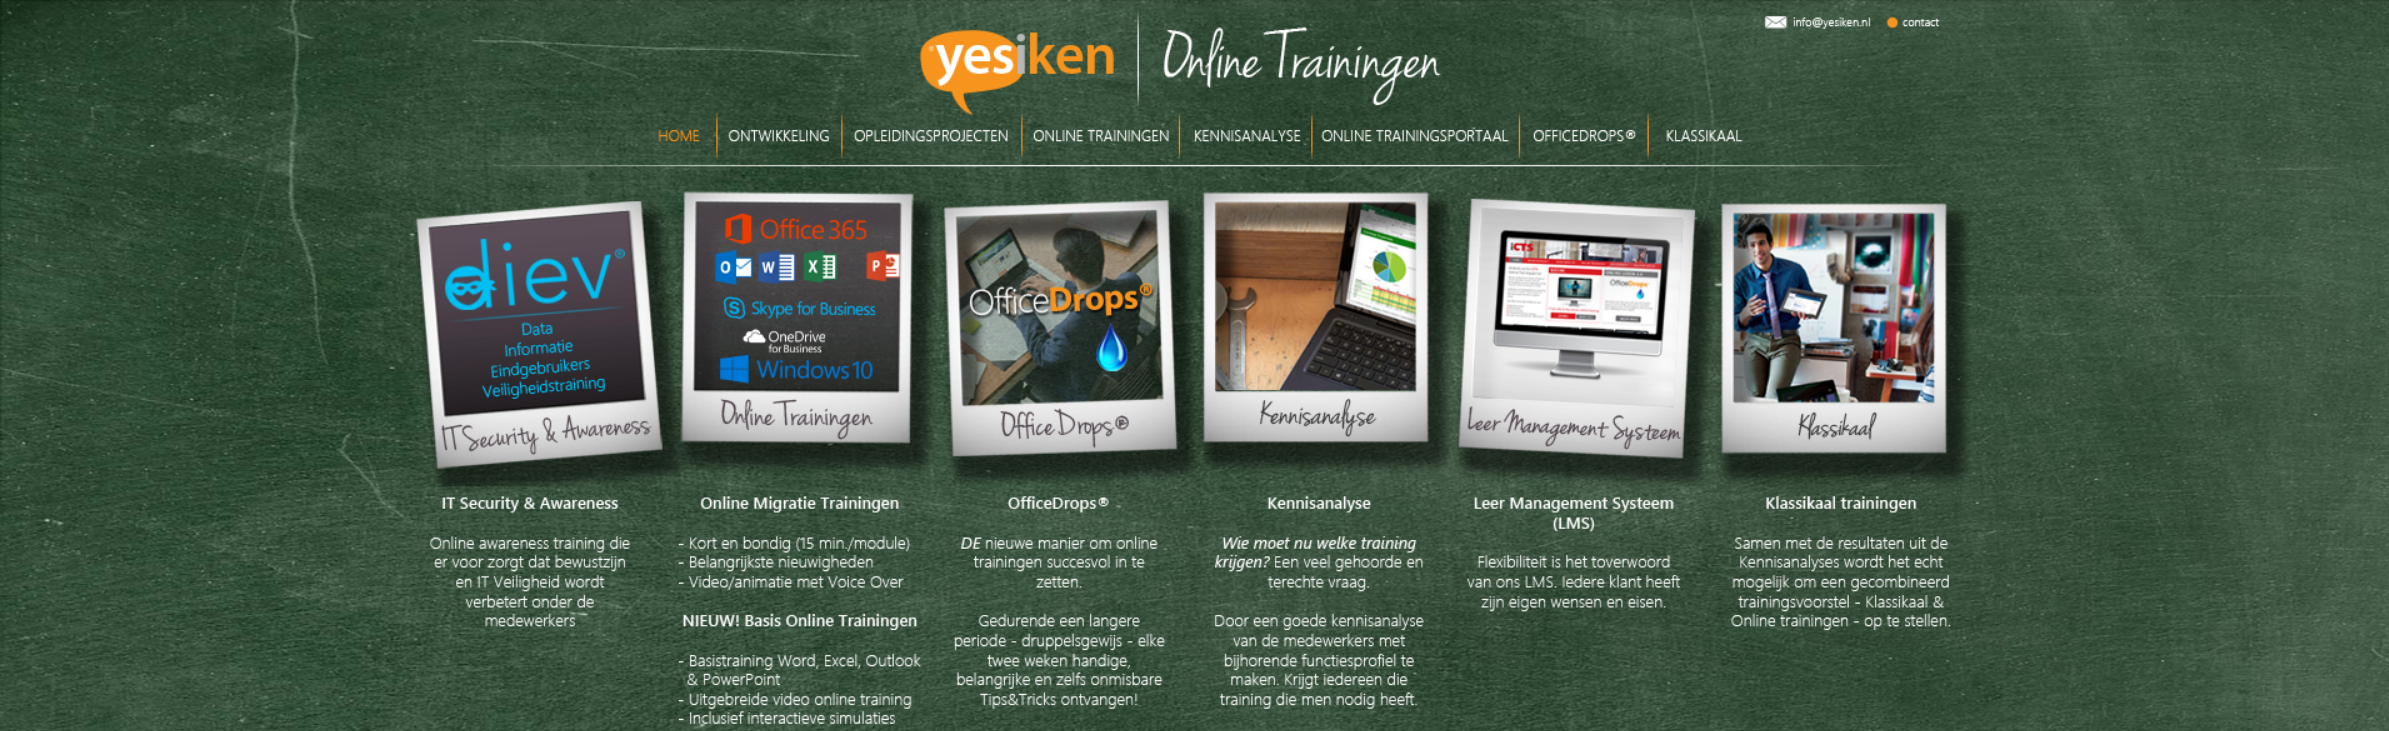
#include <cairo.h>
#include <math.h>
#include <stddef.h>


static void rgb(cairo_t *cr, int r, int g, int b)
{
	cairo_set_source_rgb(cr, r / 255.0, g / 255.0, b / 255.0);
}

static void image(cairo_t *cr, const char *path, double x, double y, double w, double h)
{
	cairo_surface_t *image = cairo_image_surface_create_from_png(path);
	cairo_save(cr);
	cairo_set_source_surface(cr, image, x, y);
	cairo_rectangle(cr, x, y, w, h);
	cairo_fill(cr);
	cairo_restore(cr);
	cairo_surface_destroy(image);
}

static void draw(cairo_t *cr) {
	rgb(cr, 255, 255, 255);
	cairo_paint(cr);
	image(cr, "image0.png", 0, 0, 2389, 731);
	image(cr, "image1.png", 469, 9, 1471, 158);
	image(cr, "image2.png", 412, 201, 265, 286);
	image(cr, "image3.png", 676, 191, 261, 286);
	image(cr, "image4.png", 940, 199, 261, 287);
	image(cr, "image5.png", 1201, 191, 258, 282);
	image(cr, "image6.png", 1458, 198, 264, 288);
	image(cr, "image7.png", 1721, 202, 250, 282);
	image(cr, "image8.png", 429, 486, 1522, 238);
}

int main(void) {
	cairo_surface_t *surface = cairo_image_surface_create(CAIRO_FORMAT_RGB24, 2389, 731);
	cairo_t *cr = cairo_create(surface);
	cairo_font_options_t *options = cairo_font_options_create();
	cairo_font_options_set_hint_metrics(options, CAIRO_HINT_METRICS_OFF);
	cairo_font_options_set_hint_style(options, CAIRO_HINT_STYLE_NONE);
	cairo_set_font_options(cr, options);
	cairo_set_miter_limit(cr, 4);
	draw(cr);
	cairo_surface_write_to_png(surface, "render.png");
	cairo_font_options_destroy(options);
	cairo_destroy(cr);
	cairo_surface_destroy(surface);
	return 0;
}
